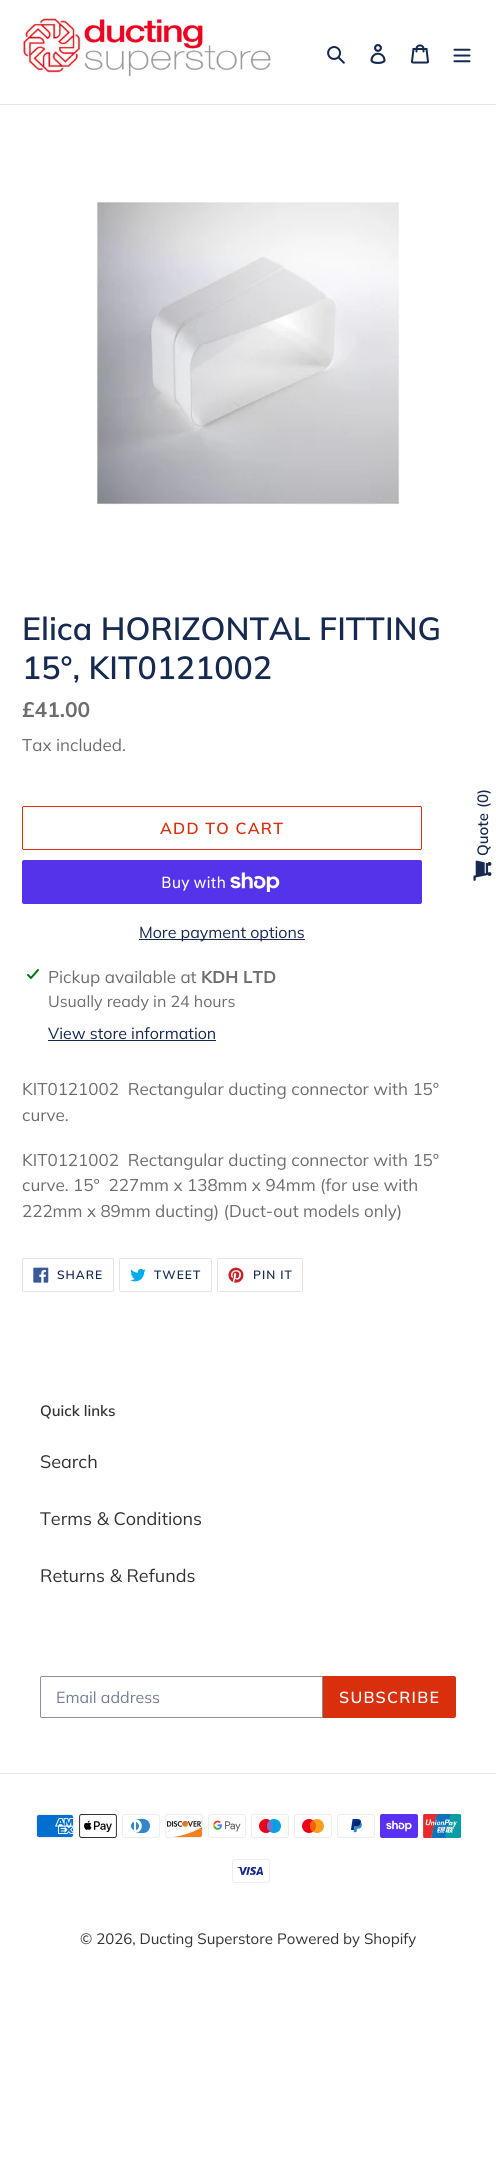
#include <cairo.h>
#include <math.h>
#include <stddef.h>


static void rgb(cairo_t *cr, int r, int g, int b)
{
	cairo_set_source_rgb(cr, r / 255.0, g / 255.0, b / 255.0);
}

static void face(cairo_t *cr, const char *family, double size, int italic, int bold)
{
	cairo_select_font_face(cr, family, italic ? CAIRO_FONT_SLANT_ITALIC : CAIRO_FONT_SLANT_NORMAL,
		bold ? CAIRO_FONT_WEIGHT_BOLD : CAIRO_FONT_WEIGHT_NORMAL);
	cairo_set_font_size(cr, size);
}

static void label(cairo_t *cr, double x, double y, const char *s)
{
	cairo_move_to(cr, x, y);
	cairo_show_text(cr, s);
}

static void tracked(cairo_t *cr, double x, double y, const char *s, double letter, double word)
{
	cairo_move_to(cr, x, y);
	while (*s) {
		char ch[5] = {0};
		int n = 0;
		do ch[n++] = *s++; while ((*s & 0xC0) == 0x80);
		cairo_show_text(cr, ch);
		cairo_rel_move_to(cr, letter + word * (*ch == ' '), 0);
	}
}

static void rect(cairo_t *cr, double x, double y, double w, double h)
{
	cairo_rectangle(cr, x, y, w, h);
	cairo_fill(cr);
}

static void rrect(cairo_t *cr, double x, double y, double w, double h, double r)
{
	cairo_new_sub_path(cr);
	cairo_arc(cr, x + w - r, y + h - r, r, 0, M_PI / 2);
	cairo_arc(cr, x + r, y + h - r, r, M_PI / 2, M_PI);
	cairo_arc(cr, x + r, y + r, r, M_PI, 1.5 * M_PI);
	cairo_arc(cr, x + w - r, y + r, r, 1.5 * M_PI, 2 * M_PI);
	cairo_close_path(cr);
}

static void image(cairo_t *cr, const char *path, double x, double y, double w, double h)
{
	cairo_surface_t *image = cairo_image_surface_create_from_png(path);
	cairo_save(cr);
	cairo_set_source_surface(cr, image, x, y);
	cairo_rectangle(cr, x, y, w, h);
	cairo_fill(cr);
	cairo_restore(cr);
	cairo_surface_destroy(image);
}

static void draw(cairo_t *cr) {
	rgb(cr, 255, 255, 255);
	cairo_paint(cr);
	rgb(cr, 228, 228, 228);
	rect(cr, 0, 104, 496, 1);
	image(cr, "image0.png", 22, 17, 249, 60);
	image(cr, "image1.png", 327, 46, 18, 18);
	image(cr, "image2.png", 370, 44, 16, 20);
	image(cr, "image3.png", 411, 44, 18, 20);
	image(cr, "image4.png", 453, 48, 18, 15);
	image(cr, "image5.png", 96, 202, 304, 303);
	face(cr, "Muli SemiBold", 32, 0, 0);
	rgb(cr, 22, 41, 80);
	label(cr, 22, 640, "Elica HORIZONTAL FITTING");
	label(cr, 22, 679, "15°, KIT0121002");
	face(cr, "Muli", 21, 0, 1);
	rgb(cr, 109, 109, 109);
	label(cr, 22, 717, "£41.00");
	face(cr, "Muli", 17, 0, 0);
	label(cr, 22, 751, "Tax included.");
	rrect(cr, 22.5, 806.5, 399, 43, 1.5);
	rgb(cr, 218, 47, 12);
	cairo_set_line_width(cr, 1);
	cairo_stroke(cr);
	face(cr, "Muli SemiBold", 16, 0, 0);
	tracked(cr, 160, 834, "ADD TO CART", 1.25, 0);
	rgb(cr, 84, 51, 235);
	rrect(cr, 22, 860, 400, 44, 2);
	cairo_fill(cr);
	face(cr, "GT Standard", 16, 0, 0);
	rgb(cr, 255, 255, 255);
	label(cr, 161, 888, "Buy with");
	image(cr, "image6.png", 230, 872, 50, 20);
	rgb(cr, 22, 41, 80);
	rect(cr, 139, 939, 166, 1);
	face(cr, "Muli", 16, 0, 0);
	label(cr, 139, 938, "More payment options");
	image(cr, "image7.png", 27, 969, 12, 10);
	face(cr, "Muli", 17, 0, 0);
	rgb(cr, 109, 109, 109);
	label(cr, 48, 983, "Pickup available at");
	face(cr, "Muli", 17, 0, 1);
	label(cr, 201, 983, "KDH LTD");
	face(cr, "Muli", 16, 0, 0);
	label(cr, 48, 1007, "Usually ready in 24 hours");
	rgb(cr, 22, 41, 80);
	label(cr, 48, 1039, "View store information");
	rect(cr, 48, 1040, 168, 1);
	face(cr, "Muli", 17, 0, 0);
	rgb(cr, 109, 109, 109);
	label(cr, 22, 1095, "KIT0121002  Rectangular ducting connector with 15°");
	label(cr, 22, 1121, "curve.");
	label(cr, 22, 1166, "KIT0121002  Rectangular ducting connector with 15°");
	label(cr, 22, 1191, "curve. 15°  227mm x 138mm x 94mm (for use with");
	label(cr, 22, 1217, "222mm x 89mm ducting) (Duct-out models only)");
	rrect(cr, 22.5, 1258.5, 91, 33, 1.5);
	rgb(cr, 228, 228, 228);
	cairo_stroke(cr);
	image(cr, "image8.png", 33, 1267, 16, 16);
	face(cr, "Muli SemiBold", 12, 0, 0);
	rgb(cr, 22, 41, 80);
	tracked(cr, 57, 1279, "SHARE", 1, 0);
	rrect(cr, 119.5, 1258.5, 92, 33, 1.5);
	rgb(cr, 228, 228, 228);
	cairo_stroke(cr);
	image(cr, "image9.png", 130, 1268, 16, 14);
	rgb(cr, 22, 41, 80);
	tracked(cr, 154, 1279, "TWEET", 1, 0);
	rrect(cr, 217.5, 1258.5, 85, 33, 1.5);
	rgb(cr, 228, 228, 228);
	cairo_stroke(cr);
	image(cr, "image10.png", 228, 1267, 16, 16);
	rgb(cr, 22, 41, 80);
	tracked(cr, 253, 1279, "PIN IT", 1, 0);
	face(cr, "Muli SemiBold", 15, 0, 0);
	rgb(cr, 51, 50, 50);
	label(cr, 40, 1416, "Quick links");
	face(cr, "Muli", 18, 0, 0);
	label(cr, 40, 1468, "Search");
	label(cr, 40, 1525, "Terms & Conditions");
	label(cr, 40, 1582, "Returns & Refunds");
	cairo_new_path(cr);
	cairo_move_to(cr, 42, 1676.5);
	cairo_line_to(cr, 322.5, 1676.5);
	cairo_line_to(cr, 322.5, 1717.5);
	cairo_line_to(cr, 42, 1717.5);
	cairo_curve_to(cr, 41, 1717.5, 40.5, 1717, 40.5, 1716);
	cairo_line_to(cr, 40.5, 1678);
	cairo_curve_to(cr, 40.5, 1677, 41, 1676.5, 42, 1676.5);
	cairo_close_path(cr);
	rgb(cr, 144, 144, 144);
	cairo_stroke(cr);
	face(cr, "Muli", 16, 0, 0);
	rgb(cr, 115, 127, 150);
	label(cr, 56, 1703, "Email address");
	rgb(cr, 218, 47, 12);
	cairo_new_path(cr);
	cairo_move_to(cr, 323, 1676);
	cairo_line_to(cr, 454, 1676);
	cairo_curve_to(cr, 455, 1676, 456, 1677, 456, 1678);
	cairo_line_to(cr, 456, 1716);
	cairo_curve_to(cr, 456, 1717, 455, 1718, 454, 1718);
	cairo_line_to(cr, 323, 1718);
	cairo_close_path(cr);
	cairo_fill(cr);
	face(cr, "Muli SemiBold", 16, 0, 0);
	rgb(cr, 255, 255, 255);
	tracked(cr, 339, 1703, "SUBSCRIBE", 1.25, 0);
	rgb(cr, 230, 230, 230);
	rect(cr, 0, 1773, 496, 1);
	image(cr, "image11.png", 36, 1814, 38, 24);
	image(cr, "image12.png", 79, 1814, 38, 24);
	image(cr, "image13.png", 122, 1814, 38, 24);
	image(cr, "image14.png", 165, 1814, 38, 24);
	image(cr, "image15.png", 208, 1814, 38, 24);
	image(cr, "image16.png", 251, 1814, 38, 24);
	image(cr, "image17.png", 294, 1814, 38, 24);
	image(cr, "image18.png", 337, 1814, 38, 24);
	image(cr, "image19.png", 380, 1814, 38, 24);
	image(cr, "image20.png", 423, 1814, 38, 24);
	image(cr, "image21.png", 232, 1859, 38, 24);
	face(cr, "Muli", 15, 0, 0);
	rgb(cr, 51, 50, 50);
	label(cr, 80, 1944, "© 2026, Ducting Superstore");
	label(cr, 277, 1944, "Powered by Shopify");
	face(cr, "Muli SemiBold", 15, 0, 0);
	rgb(cr, 22, 41, 80);
	cairo_save(cr);
	cairo_translate(cr, 488, 794);
	cairo_rotate(cr, -90 * M_PI / 180);
	label(cr, 0, 0, ")");
	cairo_restore(cr);
	cairo_save(cr);
	cairo_translate(cr, 488, 803);
	cairo_rotate(cr, -90 * M_PI / 180);
	label(cr, 0, 0, "0");
	cairo_restore(cr);
	cairo_save(cr);
	cairo_translate(cr, 488, 808);
	cairo_rotate(cr, -90 * M_PI / 180);
	label(cr, 0, 0, "(");
	cairo_restore(cr);
	cairo_save(cr);
	cairo_translate(cr, 488, 856);
	cairo_rotate(cr, -90 * M_PI / 180);
	label(cr, 0, 0, "Quote");
	cairo_restore(cr);
	image(cr, "image22.png", 473, 860, 19, 21);
}

int main(void) {
	cairo_surface_t *surface = cairo_image_surface_create(CAIRO_FORMAT_RGB24, 496, 2168);
	cairo_t *cr = cairo_create(surface);
	cairo_font_options_t *options = cairo_font_options_create();
	cairo_font_options_set_hint_metrics(options, CAIRO_HINT_METRICS_OFF);
	cairo_font_options_set_hint_style(options, CAIRO_HINT_STYLE_NONE);
	cairo_set_font_options(cr, options);
	cairo_set_miter_limit(cr, 4);
	draw(cr);
	cairo_surface_write_to_png(surface, "render.png");
	cairo_font_options_destroy(options);
	cairo_destroy(cr);
	cairo_surface_destroy(surface);
	return 0;
}
